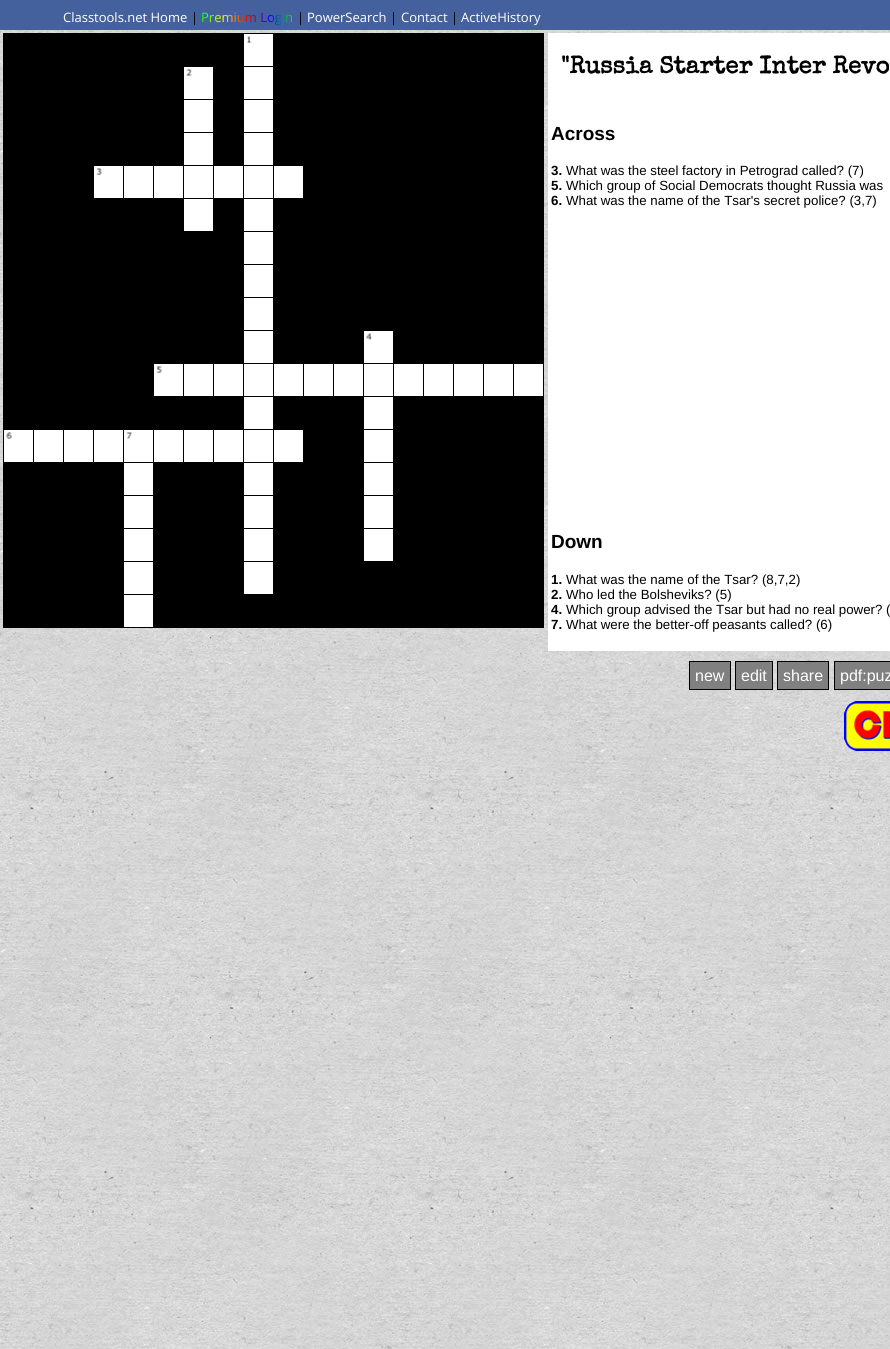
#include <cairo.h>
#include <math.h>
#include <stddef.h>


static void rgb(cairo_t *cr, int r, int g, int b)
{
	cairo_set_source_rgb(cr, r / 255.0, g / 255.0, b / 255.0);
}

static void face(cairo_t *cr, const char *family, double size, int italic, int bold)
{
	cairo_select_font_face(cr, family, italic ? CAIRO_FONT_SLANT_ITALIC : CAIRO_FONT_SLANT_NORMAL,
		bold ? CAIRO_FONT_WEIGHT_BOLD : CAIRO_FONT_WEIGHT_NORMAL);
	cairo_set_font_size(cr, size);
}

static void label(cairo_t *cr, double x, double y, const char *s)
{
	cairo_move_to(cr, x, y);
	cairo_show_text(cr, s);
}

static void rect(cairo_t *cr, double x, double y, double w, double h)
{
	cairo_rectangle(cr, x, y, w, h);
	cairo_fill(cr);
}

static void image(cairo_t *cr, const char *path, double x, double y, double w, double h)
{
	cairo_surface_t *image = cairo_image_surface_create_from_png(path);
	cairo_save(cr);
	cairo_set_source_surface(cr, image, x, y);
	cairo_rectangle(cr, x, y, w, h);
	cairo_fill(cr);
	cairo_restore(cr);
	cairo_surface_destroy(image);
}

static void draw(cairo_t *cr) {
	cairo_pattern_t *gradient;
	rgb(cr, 255, 255, 255);
	cairo_paint(cr);
	image(cr, "image0.png", 0, 30, 890, 1319);
	rgb(cr, 68, 97, 157);
	rect(cr, 0, 0, 890, 30);
	face(cr, "Open Sans", 13, 0, 0);
	rgb(cr, 255, 255, 255);
	label(cr, 63, 22, "Classtools.net Home");
	rgb(cr, 0, 0, 0);
	label(cr, 191, 22, "|");
	gradient = cairo_pattern_create_linear(201, 17, 293, 17);
	cairo_pattern_add_color_stop_rgba(gradient, 0, 0, 1, 0, 1);
	cairo_pattern_add_color_stop_rgba(gradient, 0.25, 1, 1, 0, 1);
	cairo_pattern_add_color_stop_rgba(gradient, 0.5, 1, 0, 0, 1);
	cairo_pattern_add_color_stop_rgba(gradient, 0.75, 0, 0, 1, 1);
	cairo_pattern_add_color_stop_rgba(gradient, 1, 0, 1, 0, 1);
	cairo_set_source(cr, gradient);
	cairo_pattern_destroy(gradient);
	label(cr, 201, 22, "Premium Login");
	rgb(cr, 0, 0, 0);
	label(cr, 297, 22, "|");
	rgb(cr, 255, 255, 255);
	label(cr, 307, 22, "PowerSearch");
	rgb(cr, 0, 0, 0);
	label(cr, 390, 22, "|");
	rgb(cr, 255, 255, 255);
	label(cr, 401, 22, "Contact");
	rgb(cr, 0, 0, 0);
	label(cr, 451, 22, "|");
	rgb(cr, 255, 255, 255);
	label(cr, 461, 22, "ActiveHistory");
	rgb(cr, 0, 0, 0);
	rect(cr, 4, 34, 30, 32);
	rect(cr, 273, 33, 271, 1);
	rect(cr, 34, 34, 210, 33);
	rect(cr, 273, 66, 31, 1);
	rect(cr, 273, 99, 31, 1);
	rect(cr, 273, 132, 31, 1);
	rect(cr, 273, 198, 61, 1);
	rect(cr, 303, 165, 1, 34);
	rect(cr, 273, 165, 31, 1);
	rect(cr, 34, 199, 150, 33);
	rect(cr, 273, 231, 31, 1);
	rect(cr, 34, 232, 210, 33);
	rect(cr, 273, 264, 31, 1);
	rect(cr, 34, 265, 210, 33);
	rect(cr, 273, 297, 31, 1);
	rect(cr, 34, 298, 210, 33);
	rect(cr, 273, 330, 31, 1);
	rect(cr, 34, 331, 210, 33);
	rect(cr, 393, 396, 151, 1);
	rect(cr, 304, 397, 60, 33);
	rect(cr, 393, 429, 31, 1);
	rect(cr, 334, 430, 30, 33);
	rect(cr, 393, 462, 31, 1);
	rect(cr, 304, 463, 60, 33);
	rect(cr, 393, 495, 31, 1);
	rect(cr, 304, 496, 60, 33);
	rect(cr, 393, 528, 31, 1);
	rect(cr, 304, 529, 60, 33);
	rect(cr, 363, 561, 61, 1);
	rect(cr, 393, 528, 1, 34);
	rect(cr, 363, 528, 31, 1);
	rect(cr, 393, 495, 1, 34);
	rect(cr, 363, 495, 31, 1);
	rect(cr, 393, 462, 1, 34);
	rect(cr, 363, 462, 31, 1);
	rect(cr, 393, 429, 1, 34);
	rect(cr, 363, 429, 31, 1);
	rect(cr, 393, 396, 1, 34);
	rect(cr, 273, 396, 121, 1);
	rect(cr, 303, 363, 1, 34);
	rect(cr, 273, 363, 31, 1);
	rect(cr, 34, 364, 120, 33);
	rect(cr, 34, 397, 210, 33);
	rect(cr, 273, 462, 61, 1);
	rect(cr, 303, 429, 1, 34);
	rect(cr, 273, 429, 31, 1);
	rect(cr, 184, 463, 60, 33);
	rect(cr, 273, 495, 31, 1);
	rect(cr, 184, 496, 60, 33);
	rect(cr, 273, 528, 31, 1);
	rect(cr, 184, 529, 60, 33);
	rect(cr, 273, 561, 31, 1);
	rect(cr, 184, 562, 60, 33);
	rect(cr, 243, 594, 61, 1);
	rect(cr, 273, 561, 1, 34);
	rect(cr, 243, 561, 31, 1);
	rect(cr, 273, 528, 1, 34);
	rect(cr, 243, 528, 31, 1);
	rect(cr, 273, 495, 1, 34);
	rect(cr, 243, 495, 31, 1);
	rect(cr, 273, 462, 1, 34);
	rect(cr, 153, 462, 121, 1);
	rect(cr, 273, 429, 1, 34);
	rect(cr, 243, 429, 31, 1);
	rect(cr, 273, 396, 1, 34);
	rect(cr, 153, 396, 121, 1);
	rect(cr, 273, 363, 1, 34);
	rect(cr, 243, 363, 31, 1);
	rect(cr, 273, 330, 1, 34);
	rect(cr, 243, 330, 31, 1);
	rect(cr, 273, 297, 1, 34);
	rect(cr, 243, 297, 31, 1);
	rect(cr, 273, 264, 1, 34);
	rect(cr, 243, 264, 31, 1);
	rect(cr, 273, 231, 1, 34);
	rect(cr, 183, 231, 91, 1);
	rect(cr, 273, 198, 1, 34);
	rect(cr, 213, 198, 61, 1);
	rect(cr, 273, 165, 1, 34);
	rect(cr, 243, 165, 31, 1);
	rect(cr, 273, 132, 1, 34);
	rect(cr, 213, 132, 61, 1);
	rect(cr, 273, 99, 1, 34);
	rect(cr, 213, 99, 61, 1);
	rect(cr, 273, 66, 1, 34);
	rect(cr, 243, 66, 31, 1);
	rect(cr, 273, 33, 1, 34);
	rect(cr, 3, 33, 271, 1);
	rect(cr, 3, 66, 31, 1);
	rect(cr, 3, 99, 31, 1);
	rect(cr, 3, 132, 31, 1);
	rect(cr, 3, 165, 31, 1);
	rect(cr, 3, 198, 31, 1);
	rect(cr, 3, 231, 31, 1);
	rect(cr, 3, 264, 31, 1);
	rect(cr, 3, 297, 31, 1);
	rect(cr, 3, 330, 31, 1);
	rect(cr, 3, 363, 31, 1);
	rect(cr, 3, 396, 31, 1);
	rect(cr, 34, 463, 90, 33);
	rect(cr, 153, 495, 31, 1);
	rect(cr, 34, 496, 90, 33);
	rect(cr, 153, 528, 31, 1);
	rect(cr, 34, 529, 90, 33);
	rect(cr, 153, 561, 31, 1);
	rect(cr, 34, 562, 90, 33);
	rect(cr, 153, 594, 31, 1);
	rect(cr, 153, 627, 31, 1);
	rect(cr, 153, 594, 1, 34);
	rect(cr, 123, 594, 31, 1);
	rect(cr, 153, 561, 1, 34);
	rect(cr, 123, 561, 31, 1);
	rect(cr, 153, 528, 1, 34);
	rect(cr, 123, 528, 31, 1);
	rect(cr, 153, 495, 1, 34);
	rect(cr, 123, 495, 31, 1);
	rect(cr, 153, 462, 1, 34);
	rect(cr, 3, 462, 151, 1);
	rect(cr, 33, 429, 1, 34);
	rect(cr, 3, 429, 31, 1);
	rect(cr, 3, 495, 31, 1);
	rect(cr, 3, 528, 31, 1);
	rect(cr, 3, 561, 31, 1);
	rect(cr, 3, 594, 31, 1);
	rect(cr, 3, 627, 31, 1);
	rect(cr, 3, 594, 1, 34);
	rect(cr, 3, 561, 1, 34);
	rect(cr, 3, 528, 1, 34);
	rect(cr, 3, 495, 1, 34);
	rect(cr, 3, 462, 1, 34);
	rect(cr, 3, 429, 1, 34);
	rect(cr, 3, 396, 1, 34);
	rect(cr, 3, 363, 1, 34);
	rect(cr, 3, 330, 1, 34);
	rect(cr, 3, 297, 1, 34);
	rect(cr, 3, 264, 1, 34);
	rect(cr, 3, 231, 1, 34);
	rect(cr, 3, 198, 1, 34);
	rect(cr, 3, 165, 1, 34);
	rect(cr, 3, 132, 1, 34);
	rect(cr, 3, 99, 1, 34);
	rect(cr, 3, 66, 1, 34);
	rect(cr, 3, 33, 1, 34);
	rgb(cr, 255, 255, 255);
	rect(cr, 244, 34, 29, 32);
	image(cr, "image1.png", 247, 36, 5, 7);
	rgb(cr, 0, 0, 0);
	rect(cr, 274, 34, 30, 32);
	rect(cr, 304, 34, 240, 33);
	rect(cr, 4, 67, 30, 32);
	rect(cr, 34, 67, 150, 33);
	rgb(cr, 255, 255, 255);
	rect(cr, 184, 67, 29, 32);
	image(cr, "image2.png", 186, 69, 6, 7);
	rgb(cr, 0, 0, 0);
	rect(cr, 214, 67, 30, 32);
	rect(cr, 34, 100, 150, 33);
	rect(cr, 34, 133, 150, 33);
	rect(cr, 243, 165, 1, 34);
	rect(cr, 213, 165, 31, 1);
	rect(cr, 34, 166, 60, 33);
	rect(cr, 213, 198, 1, 34);
	rect(cr, 93, 198, 121, 1);
	rect(cr, 213, 165, 1, 34);
	rect(cr, 183, 165, 31, 1);
	rect(cr, 213, 132, 1, 34);
	rect(cr, 183, 132, 31, 1);
	rect(cr, 213, 99, 1, 34);
	rect(cr, 183, 99, 31, 1);
	rect(cr, 213, 66, 1, 34);
	rgb(cr, 255, 255, 255);
	rect(cr, 244, 67, 29, 32);
	rgb(cr, 0, 0, 0);
	rect(cr, 274, 67, 30, 32);
	rect(cr, 304, 67, 240, 33);
	rect(cr, 4, 100, 30, 32);
	rgb(cr, 255, 255, 255);
	rect(cr, 184, 100, 29, 32);
	rgb(cr, 0, 0, 0);
	rect(cr, 214, 100, 30, 32);
	rgb(cr, 255, 255, 255);
	rect(cr, 244, 100, 29, 32);
	rgb(cr, 0, 0, 0);
	rect(cr, 274, 100, 30, 32);
	rect(cr, 304, 100, 240, 33);
	rect(cr, 4, 133, 30, 32);
	rgb(cr, 255, 255, 255);
	rect(cr, 184, 133, 29, 32);
	rgb(cr, 0, 0, 0);
	rect(cr, 214, 133, 30, 32);
	rgb(cr, 255, 255, 255);
	rect(cr, 244, 133, 29, 32);
	rgb(cr, 0, 0, 0);
	rect(cr, 274, 133, 30, 32);
	rect(cr, 304, 133, 240, 33);
	rect(cr, 4, 166, 30, 32);
	rgb(cr, 255, 255, 255);
	rect(cr, 94, 166, 29, 32);
	image(cr, "image3.png", 96, 168, 6, 8);
	rect(cr, 124, 166, 29, 32);
	rgb(cr, 0, 0, 0);
	rect(cr, 123, 165, 1, 34);
	rgb(cr, 255, 255, 255);
	rect(cr, 154, 166, 29, 32);
	rgb(cr, 0, 0, 0);
	rect(cr, 153, 165, 1, 34);
	rgb(cr, 255, 255, 255);
	rect(cr, 184, 166, 29, 32);
	rgb(cr, 0, 0, 0);
	rect(cr, 183, 165, 1, 34);
	rgb(cr, 255, 255, 255);
	rect(cr, 214, 166, 29, 32);
	rect(cr, 244, 166, 29, 32);
	rect(cr, 274, 166, 29, 32);
	rgb(cr, 0, 0, 0);
	rect(cr, 304, 166, 30, 32);
	rect(cr, 334, 166, 210, 33);
	rect(cr, 4, 199, 30, 32);
	rgb(cr, 255, 255, 255);
	rect(cr, 184, 199, 29, 32);
	rgb(cr, 0, 0, 0);
	rect(cr, 214, 199, 30, 32);
	rgb(cr, 255, 255, 255);
	rect(cr, 244, 199, 29, 32);
	rgb(cr, 0, 0, 0);
	rect(cr, 274, 199, 30, 32);
	rect(cr, 304, 199, 240, 33);
	rect(cr, 4, 232, 30, 32);
	rgb(cr, 255, 255, 255);
	rect(cr, 244, 232, 29, 32);
	rgb(cr, 0, 0, 0);
	rect(cr, 274, 232, 30, 32);
	rect(cr, 304, 232, 240, 33);
	rect(cr, 4, 265, 30, 32);
	rgb(cr, 255, 255, 255);
	rect(cr, 244, 265, 29, 32);
	rgb(cr, 0, 0, 0);
	rect(cr, 274, 265, 30, 32);
	rect(cr, 304, 265, 240, 33);
	rect(cr, 4, 298, 30, 32);
	rgb(cr, 255, 255, 255);
	rect(cr, 244, 298, 29, 32);
	rgb(cr, 0, 0, 0);
	rect(cr, 274, 298, 30, 32);
	rect(cr, 304, 298, 240, 33);
	rect(cr, 4, 331, 30, 32);
	rgb(cr, 255, 255, 255);
	rect(cr, 244, 331, 29, 32);
	rgb(cr, 0, 0, 0);
	rect(cr, 274, 331, 30, 32);
	rect(cr, 304, 331, 60, 33);
	rgb(cr, 255, 255, 255);
	rect(cr, 364, 331, 29, 32);
	image(cr, "image4.png", 366, 333, 6, 7);
	rgb(cr, 0, 0, 0);
	rect(cr, 394, 331, 30, 32);
	rect(cr, 423, 363, 1, 34);
	rect(cr, 393, 363, 31, 1);
	rect(cr, 393, 363, 1, 34);
	rect(cr, 363, 363, 31, 1);
	rect(cr, 393, 330, 1, 34);
	rect(cr, 424, 331, 120, 33);
	rect(cr, 4, 364, 30, 32);
	rgb(cr, 255, 255, 255);
	rect(cr, 154, 364, 29, 32);
	image(cr, "image5.png", 156, 366, 6, 8);
	rect(cr, 184, 364, 29, 32);
	rgb(cr, 0, 0, 0);
	rect(cr, 183, 363, 1, 34);
	rgb(cr, 255, 255, 255);
	rect(cr, 214, 364, 29, 32);
	rgb(cr, 0, 0, 0);
	rect(cr, 213, 363, 1, 34);
	rgb(cr, 255, 255, 255);
	rect(cr, 244, 364, 29, 32);
	rgb(cr, 0, 0, 0);
	rect(cr, 243, 363, 1, 34);
	rgb(cr, 255, 255, 255);
	rect(cr, 274, 364, 29, 32);
	rect(cr, 304, 364, 29, 32);
	rect(cr, 334, 364, 29, 32);
	rgb(cr, 0, 0, 0);
	rect(cr, 333, 363, 1, 34);
	rgb(cr, 255, 255, 255);
	rect(cr, 364, 364, 29, 32);
	rgb(cr, 0, 0, 0);
	rect(cr, 363, 363, 1, 34);
	rgb(cr, 255, 255, 255);
	rect(cr, 394, 364, 29, 32);
	rect(cr, 424, 364, 29, 32);
	rect(cr, 454, 364, 29, 32);
	rgb(cr, 0, 0, 0);
	rect(cr, 453, 363, 1, 34);
	rgb(cr, 255, 255, 255);
	rect(cr, 484, 364, 29, 32);
	rgb(cr, 0, 0, 0);
	rect(cr, 483, 363, 1, 34);
	rgb(cr, 255, 255, 255);
	rect(cr, 514, 364, 29, 32);
	rgb(cr, 0, 0, 0);
	rect(cr, 543, 363, 1, 34);
	rect(cr, 513, 363, 1, 34);
	rect(cr, 4, 397, 30, 32);
	rgb(cr, 255, 255, 255);
	rect(cr, 244, 397, 29, 32);
	rgb(cr, 0, 0, 0);
	rect(cr, 274, 397, 30, 32);
	rgb(cr, 255, 255, 255);
	rect(cr, 364, 397, 29, 32);
	rgb(cr, 0, 0, 0);
	rect(cr, 394, 397, 30, 32);
	rect(cr, 424, 397, 120, 33);
	rgb(cr, 255, 255, 255);
	rect(cr, 4, 430, 29, 32);
	image(cr, "image6.png", 6, 432, 6, 8);
	rect(cr, 34, 430, 29, 32);
	rect(cr, 64, 430, 29, 32);
	rgb(cr, 0, 0, 0);
	rect(cr, 63, 429, 1, 34);
	rgb(cr, 255, 255, 255);
	rect(cr, 94, 430, 29, 32);
	rgb(cr, 0, 0, 0);
	rect(cr, 93, 429, 1, 34);
	rgb(cr, 255, 255, 255);
	rect(cr, 124, 430, 29, 32);
	image(cr, "image7.png", 126, 432, 6, 7);
	rgb(cr, 0, 0, 0);
	rect(cr, 123, 429, 1, 34);
	rgb(cr, 255, 255, 255);
	rect(cr, 154, 430, 29, 32);
	rgb(cr, 0, 0, 0);
	rect(cr, 153, 429, 1, 34);
	rgb(cr, 255, 255, 255);
	rect(cr, 184, 430, 29, 32);
	rgb(cr, 0, 0, 0);
	rect(cr, 183, 429, 1, 34);
	rgb(cr, 255, 255, 255);
	rect(cr, 214, 430, 29, 32);
	rgb(cr, 0, 0, 0);
	rect(cr, 213, 429, 1, 34);
	rgb(cr, 255, 255, 255);
	rect(cr, 244, 430, 29, 32);
	rgb(cr, 0, 0, 0);
	rect(cr, 243, 429, 1, 34);
	rgb(cr, 255, 255, 255);
	rect(cr, 274, 430, 29, 32);
	rgb(cr, 0, 0, 0);
	rect(cr, 304, 430, 30, 32);
	rgb(cr, 255, 255, 255);
	rect(cr, 364, 430, 29, 32);
	rgb(cr, 0, 0, 0);
	rect(cr, 394, 430, 30, 32);
	rect(cr, 424, 430, 120, 33);
	rect(cr, 4, 463, 30, 32);
	rgb(cr, 255, 255, 255);
	rect(cr, 124, 463, 29, 32);
	rgb(cr, 0, 0, 0);
	rect(cr, 154, 463, 30, 32);
	rgb(cr, 255, 255, 255);
	rect(cr, 244, 463, 29, 32);
	rgb(cr, 0, 0, 0);
	rect(cr, 274, 463, 30, 32);
	rgb(cr, 255, 255, 255);
	rect(cr, 364, 463, 29, 32);
	rgb(cr, 0, 0, 0);
	rect(cr, 394, 463, 30, 32);
	rect(cr, 424, 463, 120, 33);
	rect(cr, 4, 496, 30, 32);
	rgb(cr, 255, 255, 255);
	rect(cr, 124, 496, 29, 32);
	rgb(cr, 0, 0, 0);
	rect(cr, 154, 496, 30, 32);
	rgb(cr, 255, 255, 255);
	rect(cr, 244, 496, 29, 32);
	rgb(cr, 0, 0, 0);
	rect(cr, 274, 496, 30, 32);
	rgb(cr, 255, 255, 255);
	rect(cr, 364, 496, 29, 32);
	rgb(cr, 0, 0, 0);
	rect(cr, 394, 496, 30, 32);
	rect(cr, 424, 496, 120, 33);
	rect(cr, 4, 529, 30, 32);
	rgb(cr, 255, 255, 255);
	rect(cr, 124, 529, 29, 32);
	rgb(cr, 0, 0, 0);
	rect(cr, 154, 529, 30, 32);
	rgb(cr, 255, 255, 255);
	rect(cr, 244, 529, 29, 32);
	rgb(cr, 0, 0, 0);
	rect(cr, 274, 529, 30, 32);
	rgb(cr, 255, 255, 255);
	rect(cr, 364, 529, 29, 32);
	rgb(cr, 0, 0, 0);
	rect(cr, 394, 529, 30, 32);
	rect(cr, 424, 529, 120, 33);
	rect(cr, 4, 562, 30, 32);
	rgb(cr, 255, 255, 255);
	rect(cr, 124, 562, 29, 32);
	rgb(cr, 0, 0, 0);
	rect(cr, 154, 562, 30, 32);
	rgb(cr, 255, 255, 255);
	rect(cr, 244, 562, 29, 32);
	rgb(cr, 0, 0, 0);
	rect(cr, 274, 562, 30, 32);
	rect(cr, 304, 562, 240, 33);
	rect(cr, 4, 595, 30, 32);
	rgb(cr, 255, 255, 255);
	rect(cr, 124, 595, 29, 32);
	rgb(cr, 0, 0, 0);
	rect(cr, 34, 595, 90, 33);
	rect(cr, 123, 627, 31, 1);
	rect(cr, 154, 595, 30, 32);
	rect(cr, 184, 595, 360, 33);
	rgb(cr, 255, 255, 255);
	rect(cr, 548, 33, 342, 618);
	face(cr, "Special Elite", 24, 0, 1);
	rgb(cr, 0, 0, 0);
	label(cr, 561, 73, "\"Russia Starter Inter Revo");
	face(cr, "Liberation Sans", 19, 0, 1);
	label(cr, 551, 140, "Across");
	face(cr, "Liberation Sans", 13.3, 0, 1);
	label(cr, 551, 175, "3.");
	face(cr, "Liberation Sans", 13.3, 0, 0);
	label(cr, 566, 175, "What was the steel factory in Petrograd called? (7)");
	face(cr, "Liberation Sans", 13.3, 0, 1);
	label(cr, 551, 190, "5.");
	face(cr, "Liberation Sans", 13.3, 0, 0);
	label(cr, 566, 190, "Which group of Social Democrats thought Russia was");
	face(cr, "Liberation Sans", 13.3, 0, 1);
	label(cr, 551, 205, "6.");
	face(cr, "Liberation Sans", 13.3, 0, 0);
	label(cr, 566, 205, "What was the name of the Tsar's secret police? (3,7)");
	face(cr, "Liberation Sans", 19, 0, 1);
	label(cr, 551, 548, "Down");
	face(cr, "Liberation Sans", 13.3, 0, 1);
	label(cr, 551, 584, "1.");
	face(cr, "Liberation Sans", 13.3, 0, 0);
	label(cr, 566, 584, "What was the name of the Tsar? (8,7,2)");
	face(cr, "Liberation Sans", 13.3, 0, 1);
	label(cr, 551, 599, "2.");
	face(cr, "Liberation Sans", 13.3, 0, 0);
	label(cr, 566, 599, "Who led the Bolsheviks? (5)");
	face(cr, "Liberation Sans", 13.3, 0, 1);
	label(cr, 551, 614, "4.");
	face(cr, "Liberation Sans", 13.3, 0, 0);
	label(cr, 566, 614, "Which group advised the Tsar but had no real power? (");
	face(cr, "Liberation Sans", 13.3, 0, 1);
	label(cr, 551, 629, "7.");
	face(cr, "Liberation Sans", 13.3, 0, 0);
	label(cr, 566, 629, "What were the better-off peasants called? (6)");
	rgb(cr, 128, 128, 128);
	cairo_rectangle(cr, 689.5, 661.5, 41, 28);
	cairo_fill_preserve(cr);
	rgb(cr, 0, 0, 0);
	cairo_set_line_width(cr, 1);
	cairo_stroke(cr);
	face(cr, "Liberation Sans", 16, 0, 0);
	rgb(cr, 255, 255, 255);
	label(cr, 695, 681, "new");
	rgb(cr, 128, 128, 128);
	cairo_rectangle(cr, 735.5, 661.5, 37, 28);
	cairo_fill_preserve(cr);
	rgb(cr, 0, 0, 0);
	cairo_stroke(cr);
	rgb(cr, 255, 255, 255);
	label(cr, 741, 681, "edit");
	rgb(cr, 128, 128, 128);
	cairo_rectangle(cr, 777.5, 661.5, 51, 28);
	cairo_fill_preserve(cr);
	rgb(cr, 0, 0, 0);
	cairo_stroke(cr);
	rgb(cr, 255, 255, 255);
	label(cr, 783, 681, "share");
	rgb(cr, 128, 128, 128);
	cairo_rectangle(cr, 834.5, 661.5, 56, 28);
	cairo_fill_preserve(cr);
	rgb(cr, 0, 0, 0);
	cairo_stroke(cr);
	rgb(cr, 255, 255, 255);
	label(cr, 840, 681, "pdf:puz");
	image(cr, "image8.png", 844, 701, 46, 50);
}

int main(void) {
	cairo_surface_t *surface = cairo_image_surface_create(CAIRO_FORMAT_RGB24, 890, 1349);
	cairo_t *cr = cairo_create(surface);
	cairo_font_options_t *options = cairo_font_options_create();
	cairo_font_options_set_hint_metrics(options, CAIRO_HINT_METRICS_OFF);
	cairo_font_options_set_hint_style(options, CAIRO_HINT_STYLE_NONE);
	cairo_set_font_options(cr, options);
	cairo_set_miter_limit(cr, 4);
	draw(cr);
	cairo_surface_write_to_png(surface, "render.png");
	cairo_font_options_destroy(options);
	cairo_destroy(cr);
	cairo_surface_destroy(surface);
	return 0;
}
